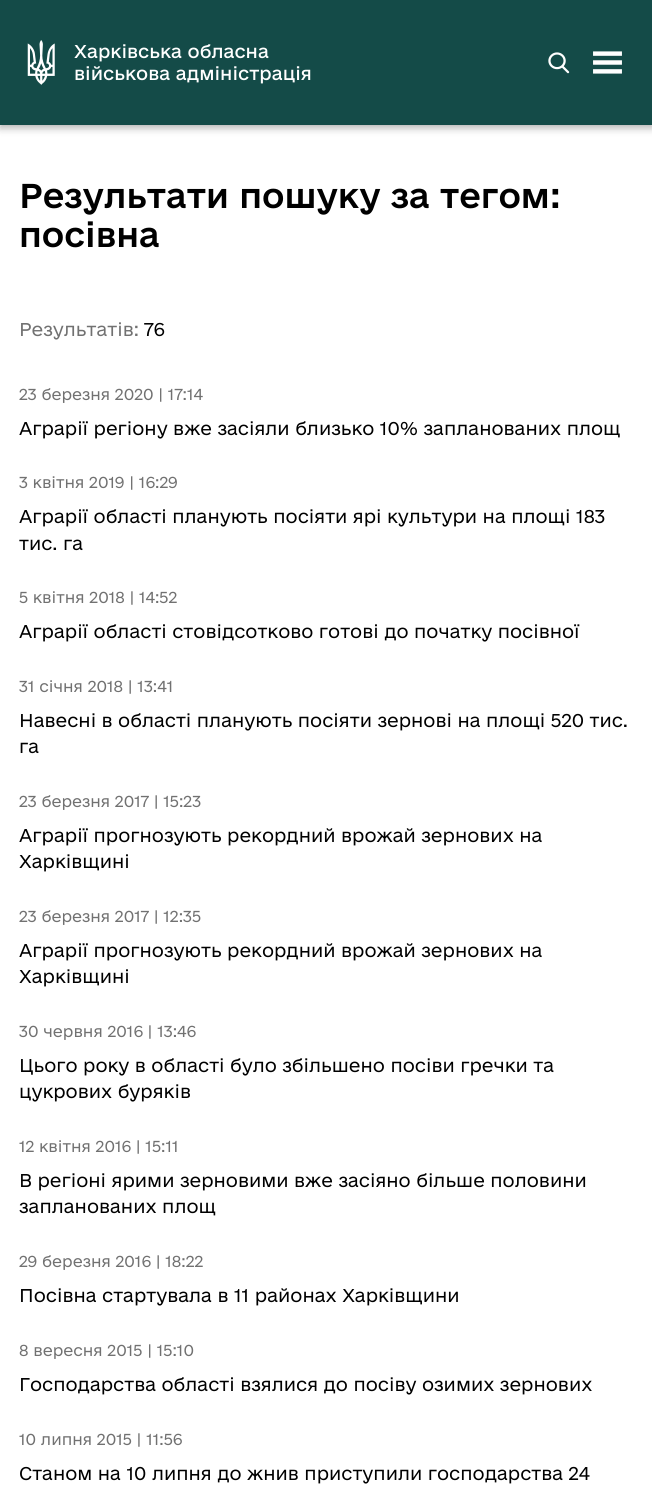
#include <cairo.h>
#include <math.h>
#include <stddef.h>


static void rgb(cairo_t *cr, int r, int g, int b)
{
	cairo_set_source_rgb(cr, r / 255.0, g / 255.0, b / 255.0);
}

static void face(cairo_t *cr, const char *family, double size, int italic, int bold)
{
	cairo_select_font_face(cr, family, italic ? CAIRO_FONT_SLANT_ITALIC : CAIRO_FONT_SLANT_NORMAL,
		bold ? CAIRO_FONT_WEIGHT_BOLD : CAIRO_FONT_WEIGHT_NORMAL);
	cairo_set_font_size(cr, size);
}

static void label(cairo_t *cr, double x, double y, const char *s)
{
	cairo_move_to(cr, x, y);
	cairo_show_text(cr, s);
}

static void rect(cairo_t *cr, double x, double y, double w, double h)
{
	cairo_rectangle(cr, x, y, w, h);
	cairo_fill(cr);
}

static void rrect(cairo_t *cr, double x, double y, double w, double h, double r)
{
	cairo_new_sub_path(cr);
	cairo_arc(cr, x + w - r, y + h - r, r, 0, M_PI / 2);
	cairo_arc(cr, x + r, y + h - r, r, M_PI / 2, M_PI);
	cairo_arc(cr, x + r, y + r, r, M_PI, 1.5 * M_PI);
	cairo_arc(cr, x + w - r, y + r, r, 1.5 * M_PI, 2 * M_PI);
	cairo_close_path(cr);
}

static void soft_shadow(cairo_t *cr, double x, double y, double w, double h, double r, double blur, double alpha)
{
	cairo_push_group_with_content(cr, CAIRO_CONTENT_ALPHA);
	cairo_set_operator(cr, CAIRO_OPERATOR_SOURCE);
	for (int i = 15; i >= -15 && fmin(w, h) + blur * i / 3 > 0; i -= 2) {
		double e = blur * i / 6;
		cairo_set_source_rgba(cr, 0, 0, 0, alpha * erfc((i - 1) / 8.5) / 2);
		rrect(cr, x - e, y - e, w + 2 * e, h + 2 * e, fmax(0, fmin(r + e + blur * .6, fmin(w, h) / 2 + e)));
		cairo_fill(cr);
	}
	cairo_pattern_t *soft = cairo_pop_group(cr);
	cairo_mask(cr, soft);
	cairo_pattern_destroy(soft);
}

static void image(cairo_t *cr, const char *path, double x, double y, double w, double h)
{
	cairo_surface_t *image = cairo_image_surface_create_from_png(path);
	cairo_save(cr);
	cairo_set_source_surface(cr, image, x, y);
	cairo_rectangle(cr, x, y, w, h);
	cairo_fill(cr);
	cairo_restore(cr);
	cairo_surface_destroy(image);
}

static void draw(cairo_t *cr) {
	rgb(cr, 255, 255, 255);
	cairo_paint(cr);
	rgb(cr, 0, 0, 0);
	soft_shadow(cr, 0, 3, 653, 125, 0, 4, 0.3);
	rgb(cr, 20, 75, 72);
	rect(cr, 0, 0, 652, 125);
	image(cr, "image0.png", 27, 40, 28, 45);
	face(cr, "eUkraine", 17.5, 0, 0);
	rgb(cr, 255, 255, 255);
	label(cr, 74, 58, "Харківська обласна");
	label(cr, 74, 80, "військова адміністрація");
	image(cr, "image1.png", 548, 52, 22, 22);
	image(cr, "image2.png", 593, 51, 29, 23);
	face(cr, "eUkraine Medium", 32.5, 0, 0);
	rgb(cr, 0, 0, 0);
	label(cr, 19, 208, "Результати пошуку за тегом:");
	label(cr, 19, 247, "посівна");
	face(cr, "eUkraine Light", 17.5, 0, 0);
	rgb(cr, 113, 113, 113);
	label(cr, 19, 336, "Результатів:");
	rgb(cr, 0, 0, 0);
	label(cr, 144, 336, "76");
	face(cr, "eUkraine Light", 15, 0, 0);
	rgb(cr, 113, 113, 113);
	label(cr, 19, 400, "23 березня 2020 | 17:14");
	face(cr, "eUkraine Light", 17.5, 0, 0);
	rgb(cr, 0, 0, 0);
	label(cr, 19, 435, "Аграрії регіону вже засіяли близько 10% запланованих площ");
	face(cr, "eUkraine Light", 15, 0, 0);
	rgb(cr, 113, 113, 113);
	label(cr, 19, 488, "3 квітня 2019 | 16:29");
	face(cr, "eUkraine Light", 17.5, 0, 0);
	rgb(cr, 0, 0, 0);
	label(cr, 19, 523, "Аграрії області планують посіяти ярі культури на площі 183");
	label(cr, 19, 550, "тис. га");
	face(cr, "eUkraine Light", 15, 0, 0);
	rgb(cr, 113, 113, 113);
	label(cr, 19, 603, "5 квітня 2018 | 14:52");
	face(cr, "eUkraine Light", 17.5, 0, 0);
	rgb(cr, 0, 0, 0);
	label(cr, 19, 638, "Аграрії області стовідсотково готові до початку посівної");
	face(cr, "eUkraine Light", 15, 0, 0);
	rgb(cr, 113, 113, 113);
	label(cr, 19, 692, "31 січня 2018 | 13:41");
	face(cr, "eUkraine Light", 17.5, 0, 0);
	rgb(cr, 0, 0, 0);
	label(cr, 19, 727, "Навесні в області планують посіяти зернові на площі 520 тис.");
	label(cr, 19, 753, "га");
	face(cr, "eUkraine Light", 15, 0, 0);
	rgb(cr, 113, 113, 113);
	label(cr, 19, 807, "23 березня 2017 | 15:23");
	face(cr, "eUkraine Light", 17.5, 0, 0);
	rgb(cr, 0, 0, 0);
	label(cr, 19, 842, "Аграрії прогнозують рекордний врожай зернових на");
	label(cr, 19, 868, "Харківщині");
	face(cr, "eUkraine Light", 15, 0, 0);
	rgb(cr, 113, 113, 113);
	label(cr, 19, 922, "23 березня 2017 | 12:35");
	face(cr, "eUkraine Light", 17.5, 0, 0);
	rgb(cr, 0, 0, 0);
	label(cr, 19, 957, "Аграрії прогнозують рекордний врожай зернових на");
	label(cr, 19, 983, "Харківщині");
	face(cr, "eUkraine Light", 15, 0, 0);
	rgb(cr, 113, 113, 113);
	label(cr, 19, 1037, "30 червня 2016 | 13:46");
	face(cr, "eUkraine Light", 17.5, 0, 0);
	rgb(cr, 0, 0, 0);
	label(cr, 19, 1072, "Цього року в області було збільшено посіви гречки та");
	label(cr, 19, 1098, "цукрових буряків");
	face(cr, "eUkraine Light", 15, 0, 0);
	rgb(cr, 113, 113, 113);
	label(cr, 19, 1152, "12 квітня 2016 | 15:11");
	face(cr, "eUkraine Light", 17.5, 0, 0);
	rgb(cr, 0, 0, 0);
	label(cr, 19, 1187, "В регіоні ярими зерновими вже засіяно більше половини");
	label(cr, 19, 1213, "запланованих площ");
	face(cr, "eUkraine Light", 15, 0, 0);
	rgb(cr, 113, 113, 113);
	label(cr, 19, 1267, "29 березня 2016 | 18:22");
	face(cr, "eUkraine Light", 17.5, 0, 0);
	rgb(cr, 0, 0, 0);
	label(cr, 19, 1302, "Посівна стартувала в 11 районах Харківщини");
	face(cr, "eUkraine Light", 15, 0, 0);
	rgb(cr, 113, 113, 113);
	label(cr, 19, 1356, "8 вересня 2015 | 15:10");
	face(cr, "eUkraine Light", 17.5, 0, 0);
	rgb(cr, 0, 0, 0);
	label(cr, 19, 1391, "Господарства області взялися до посіву озимих зернових");
	face(cr, "eUkraine Light", 15, 0, 0);
	rgb(cr, 113, 113, 113);
	label(cr, 19, 1445, "10 липня 2015 | 11:56");
	face(cr, "eUkraine Light", 17.5, 0, 0);
	rgb(cr, 0, 0, 0);
	label(cr, 19, 1480, "Станом на 10 липня до жнив приступили господарства 24");
}

int main(void) {
	cairo_surface_t *surface = cairo_image_surface_create(CAIRO_FORMAT_RGB24, 652, 1490);
	cairo_t *cr = cairo_create(surface);
	cairo_font_options_t *options = cairo_font_options_create();
	cairo_font_options_set_hint_metrics(options, CAIRO_HINT_METRICS_OFF);
	cairo_font_options_set_hint_style(options, CAIRO_HINT_STYLE_NONE);
	cairo_set_font_options(cr, options);
	cairo_set_miter_limit(cr, 4);
	draw(cr);
	cairo_surface_write_to_png(surface, "render.png");
	cairo_font_options_destroy(options);
	cairo_destroy(cr);
	cairo_surface_destroy(surface);
	return 0;
}
